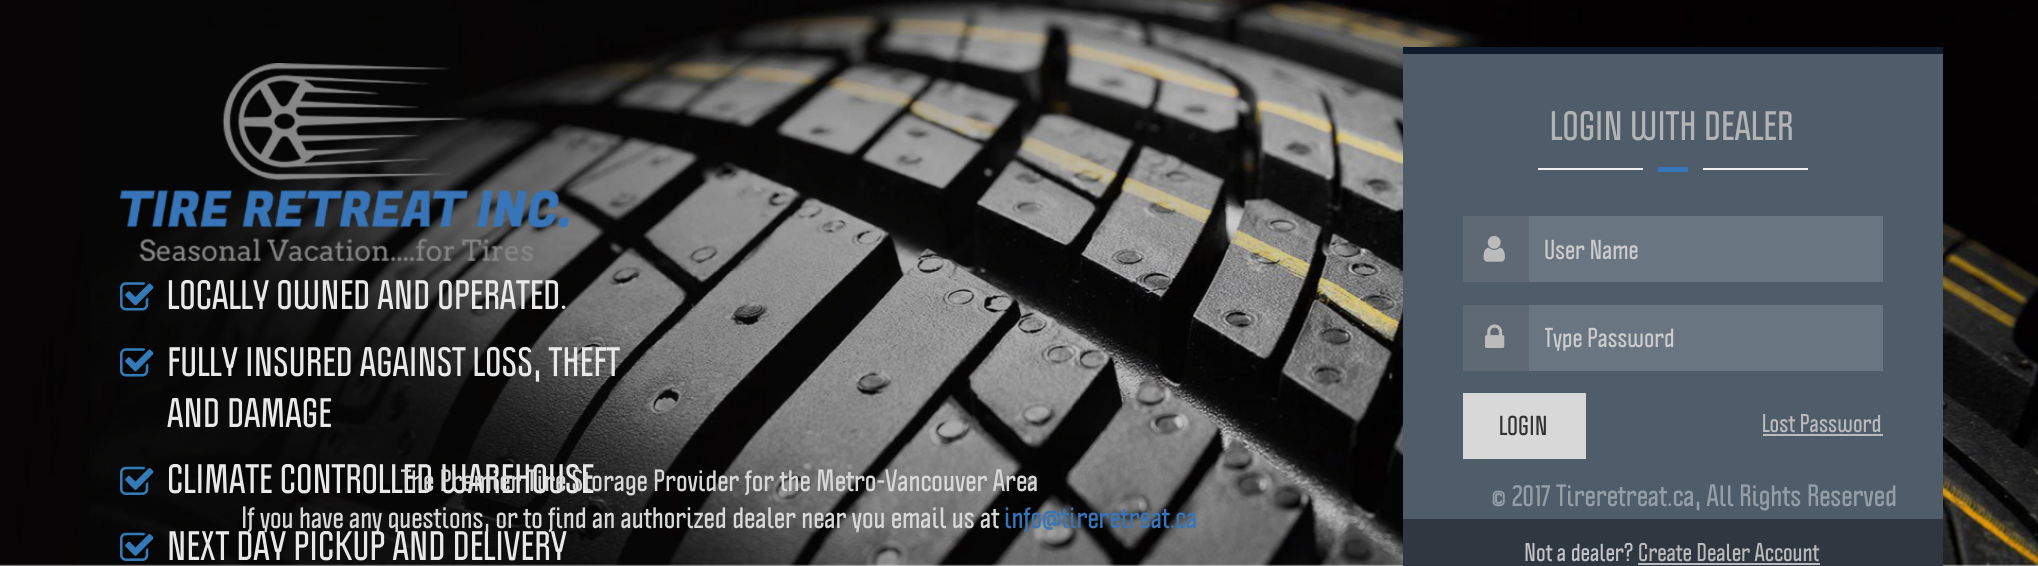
#include <cairo.h>
#include <math.h>
#include <stddef.h>


static void rgb(cairo_t *cr, int r, int g, int b)
{
	cairo_set_source_rgb(cr, r / 255.0, g / 255.0, b / 255.0);
}

static void face(cairo_t *cr, const char *family, double size, int italic, int bold)
{
	cairo_select_font_face(cr, family, italic ? CAIRO_FONT_SLANT_ITALIC : CAIRO_FONT_SLANT_NORMAL,
		bold ? CAIRO_FONT_WEIGHT_BOLD : CAIRO_FONT_WEIGHT_NORMAL);
	cairo_set_font_size(cr, size);
}

static void label(cairo_t *cr, double x, double y, const char *s)
{
	cairo_move_to(cr, x, y);
	cairo_show_text(cr, s);
}

static void rect(cairo_t *cr, double x, double y, double w, double h)
{
	cairo_rectangle(cr, x, y, w, h);
	cairo_fill(cr);
}

static void image(cairo_t *cr, const char *path, double x, double y, double w, double h)
{
	cairo_surface_t *image = cairo_image_surface_create_from_png(path);
	cairo_save(cr);
	cairo_set_source_surface(cr, image, x, y);
	cairo_rectangle(cr, x, y, w, h);
	cairo_fill(cr);
	cairo_restore(cr);
	cairo_surface_destroy(image);
}

static void draw(cairo_t *cr) {
	rgb(cr, 255, 255, 255);
	cairo_paint(cr);
	image(cr, "image0.png", 0, 0, 2038, 566);
	image(cr, "image1.png", 120, 63, 449, 198);
	image(cr, "image2.png", 120, 282, 34, 29);
	face(cr, "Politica", 36, 0, 1);
	rgb(cr, 233, 233, 233);
	label(cr, 167, 309, "LOCALLY OWNED AND OPERATED.");
	image(cr, "image3.png", 120, 348, 34, 29);
	label(cr, 167, 376, "FULLY INSURED AGAINST LOSS, THEFT");
	label(cr, 167, 427, "AND DAMAGE");
	image(cr, "image4.png", 120, 466, 34, 29);
	label(cr, 167, 493, "CLIMATE CONTROLLED WAREHOUSE");
	image(cr, "image5.png", 120, 532, 34, 29);
	label(cr, 167, 560, "NEXT DAY PICKUP AND DELIVERY");
	rgb(cr, 79, 93, 106);
	rect(cr, 1403, 54, 540, 465);
	rgb(cr, 14, 27, 44);
	rect(cr, 1403, 47, 540, 7);
	rgb(cr, 179, 179, 179);
	label(cr, 1550, 140, "LOGIN WITH DEALER");
	rgb(cr, 55, 117, 184);
	rect(cr, 1658, 167, 30, 5);
	rgb(cr, 238, 238, 238);
	rect(cr, 1538, 168, 105, 2);
	rect(cr, 1703, 168, 105, 2);
	rgb(cr, 95, 105, 115);
	rect(cr, 1463, 216, 66, 66);
	image(cr, "image6.png", 1483, 236, 22, 26);
	rgb(cr, 105, 117, 128);
	rect(cr, 1529, 216, 354, 66);
	face(cr, "Politica", 24, 0, 1);
	rgb(cr, 204, 204, 204);
	label(cr, 1544, 259, "User Name");
	rgb(cr, 95, 105, 115);
	rect(cr, 1463, 305, 66, 66);
	image(cr, "image7.png", 1485, 324, 20, 24);
	rgb(cr, 105, 117, 128);
	rect(cr, 1529, 305, 354, 66);
	cairo_save(cr);
	cairo_rectangle(cr, 1545, 323, 320, 31);
	cairo_clip(cr);
	rgb(cr, 204, 204, 204);
	label(cr, 1544, 347, "Type Password");
	cairo_restore(cr);
	rgb(cr, 216, 216, 216);
	rect(cr, 1463, 393, 123, 66);
	rgb(cr, 49, 49, 49);
	label(cr, 1499, 435, "LOGIN");
	face(cr, "Politica", 22.5, 0, 1);
	rgb(cr, 187, 187, 187);
	label(cr, 1762, 432, "Lost Password");
	rect(cr, 1763, 434, 120, 2);
	rgb(cr, 47, 56, 64);
	rect(cr, 1403, 519, 540, 47);
	rgb(cr, 193, 195, 198);
	label(cr, 1524, 561, "Not a dealer?");
	rgb(cr, 187, 187, 187);
	label(cr, 1638, 561, "Create Dealer Account");
	rect(cr, 1638, 563, 182, 2);
	face(cr, "Politica", 27, 0, 1);
	rgb(cr, 216, 216, 216);
	label(cr, 401, 491, "The Premier Tire Storage Provider for the Metro-Vancouver Area");
	label(cr, 241, 528, "If you have any questions, or to find an authorized dealer near you email us at");
	rgb(cr, 55, 117, 184);
	label(cr, 1004, 528, "info@tireretreat.ca");
	rgb(cr, 149, 158, 166);
	label(cr, 1491, 506, "© 2017 Tireretreat.ca, All Rights Reserved");
}

int main(void) {
	cairo_surface_t *surface = cairo_image_surface_create(CAIRO_FORMAT_RGB24, 2038, 566);
	cairo_t *cr = cairo_create(surface);
	cairo_font_options_t *options = cairo_font_options_create();
	cairo_font_options_set_hint_metrics(options, CAIRO_HINT_METRICS_OFF);
	cairo_font_options_set_hint_style(options, CAIRO_HINT_STYLE_NONE);
	cairo_set_font_options(cr, options);
	cairo_set_miter_limit(cr, 4);
	draw(cr);
	cairo_surface_write_to_png(surface, "render.png");
	cairo_font_options_destroy(options);
	cairo_destroy(cr);
	cairo_surface_destroy(surface);
	return 0;
}
